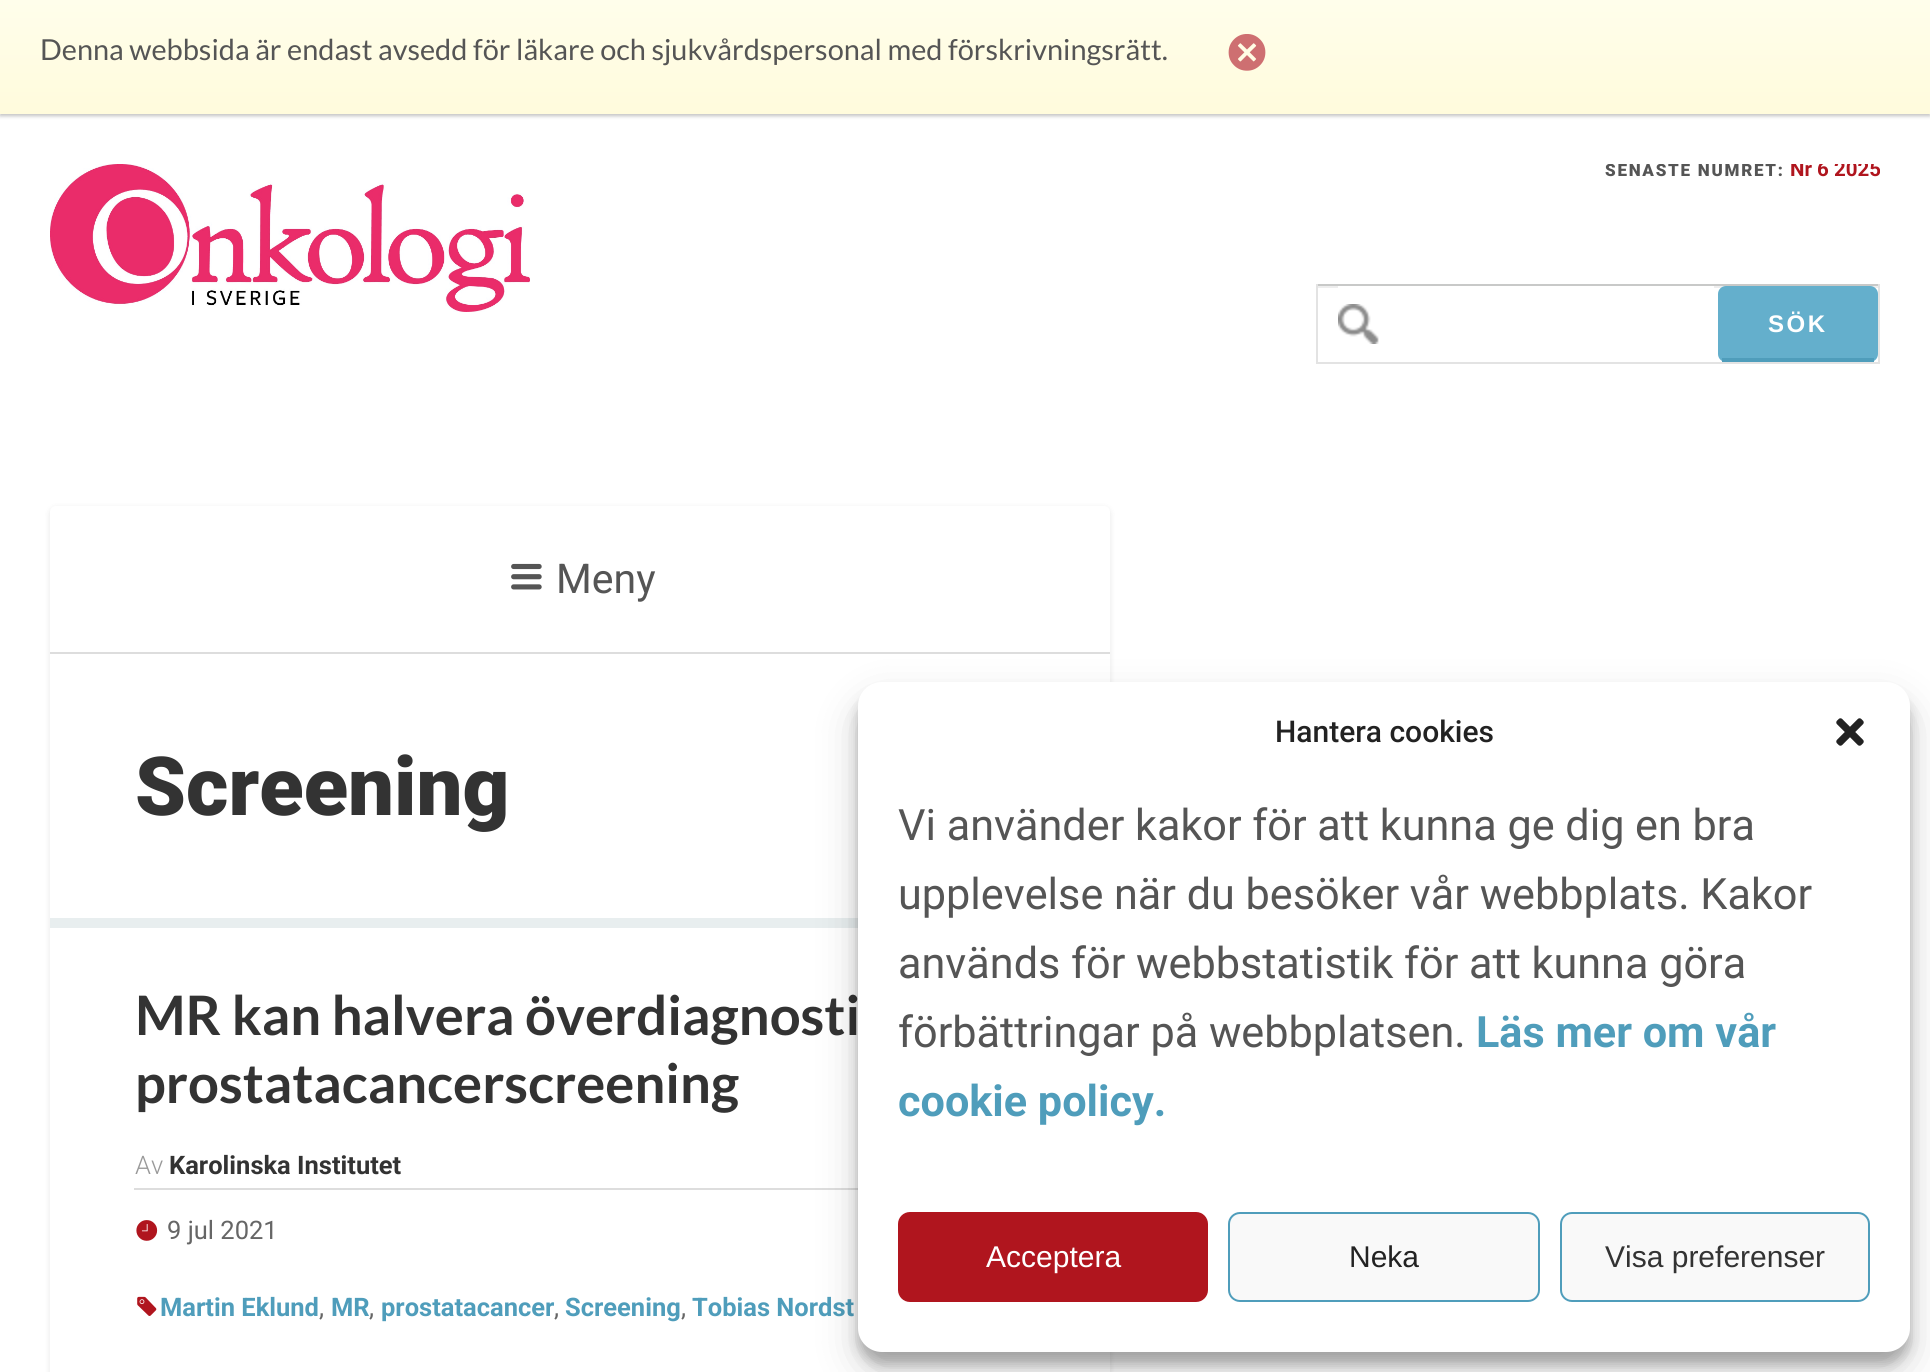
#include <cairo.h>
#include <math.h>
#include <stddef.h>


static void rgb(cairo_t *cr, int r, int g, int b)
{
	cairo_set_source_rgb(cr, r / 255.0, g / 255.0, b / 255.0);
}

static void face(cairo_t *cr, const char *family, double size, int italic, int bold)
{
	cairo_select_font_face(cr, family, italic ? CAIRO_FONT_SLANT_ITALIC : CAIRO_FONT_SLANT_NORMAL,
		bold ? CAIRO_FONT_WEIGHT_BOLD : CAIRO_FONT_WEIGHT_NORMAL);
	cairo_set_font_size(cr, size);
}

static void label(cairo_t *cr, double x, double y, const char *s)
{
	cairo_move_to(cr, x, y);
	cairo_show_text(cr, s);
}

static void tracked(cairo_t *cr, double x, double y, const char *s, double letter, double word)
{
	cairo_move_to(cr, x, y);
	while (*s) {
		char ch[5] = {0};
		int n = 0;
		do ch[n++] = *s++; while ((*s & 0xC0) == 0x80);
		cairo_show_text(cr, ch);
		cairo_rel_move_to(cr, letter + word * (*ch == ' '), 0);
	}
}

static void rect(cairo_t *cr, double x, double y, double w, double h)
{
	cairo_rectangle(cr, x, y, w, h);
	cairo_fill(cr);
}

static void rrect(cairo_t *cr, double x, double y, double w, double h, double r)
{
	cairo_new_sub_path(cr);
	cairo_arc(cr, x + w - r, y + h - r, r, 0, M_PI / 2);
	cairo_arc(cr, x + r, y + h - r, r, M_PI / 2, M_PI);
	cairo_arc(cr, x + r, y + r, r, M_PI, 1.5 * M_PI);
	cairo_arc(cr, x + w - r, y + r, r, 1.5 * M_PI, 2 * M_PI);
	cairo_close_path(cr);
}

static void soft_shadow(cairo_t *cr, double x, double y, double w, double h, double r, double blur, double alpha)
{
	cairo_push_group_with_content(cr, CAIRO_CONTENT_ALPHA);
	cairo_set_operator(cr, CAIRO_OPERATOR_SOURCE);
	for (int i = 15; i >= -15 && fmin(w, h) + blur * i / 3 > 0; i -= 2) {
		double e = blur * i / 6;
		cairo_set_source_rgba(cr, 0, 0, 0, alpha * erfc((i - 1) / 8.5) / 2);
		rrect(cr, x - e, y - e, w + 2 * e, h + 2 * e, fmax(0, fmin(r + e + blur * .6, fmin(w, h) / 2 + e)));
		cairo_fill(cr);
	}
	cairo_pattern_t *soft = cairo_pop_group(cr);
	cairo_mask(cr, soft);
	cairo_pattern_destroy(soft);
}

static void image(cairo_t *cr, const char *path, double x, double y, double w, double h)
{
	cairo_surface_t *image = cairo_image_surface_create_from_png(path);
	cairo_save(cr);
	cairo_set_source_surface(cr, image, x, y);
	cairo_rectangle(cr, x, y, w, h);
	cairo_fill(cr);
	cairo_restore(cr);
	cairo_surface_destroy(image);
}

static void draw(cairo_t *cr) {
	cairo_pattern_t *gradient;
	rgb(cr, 255, 255, 255);
	cairo_paint(cr);
	rgb(cr, 0, 0, 0);
	soft_shadow(cr, 0, 2, 1930, 114, 0, 2, 0.25);
	gradient = cairo_pattern_create_linear(965, 0, 965, 114);
	cairo_pattern_add_color_stop_rgba(gradient, 0, 1, 0.996, 0.922, 1);
	cairo_pattern_add_color_stop_rgba(gradient, 1, 1, 0.984, 0.863, 1);
	cairo_set_source(cr, gradient);
	cairo_pattern_destroy(gradient);
	rect(cr, 0, 0, 1930, 114);
	face(cr, "Lato", 28.9, 0, 0);
	rgb(cr, 85, 85, 85);
	label(cr, 40, 60, "Denna webbsida är endast avsedd för läkare och sjukvårdspersonal med förskrivningsrätt.");
	image(cr, "image0.png", 1228, 34, 38, 37);
	image(cr, "image1.png", 50, 164, 480, 148);
	cairo_save(cr);
	cairo_rectangle(cr, 50, 164, 1830, 220);
	cairo_clip(cr);
	face(cr, "Roboto Black", 17, 0, 0);
	tracked(cr, 1605, 176, "SENASTE NUMRET:", 1.75, 0);
	face(cr, "Roboto", 20.5, 0, 1);
	rgb(cr, 176, 21, 30);
	label(cr, 1790, 176, "Nr 6 2025");
	cairo_restore(cr);
	rgb(cr, 238, 238, 238);
	rect(cr, 1318, 286, 560, 2);
	rgb(cr, 200, 201, 200);
	rect(cr, 1316, 284, 564, 2);
	rgb(cr, 227, 227, 227);
	rect(cr, 1878, 284, 2, 80);
	rect(cr, 1316, 362, 564, 2);
	rect(cr, 1316, 284, 2, 80);
	rgb(cr, 255, 255, 255);
	rect(cr, 1338, 286, 376, 2);
	image(cr, "image2.png", 1338, 304, 41, 40);
	rgb(cr, 100, 175, 204);
	rrect(cr, 1718, 286, 160, 76, 8);
	cairo_fill(cr);
	rgb(cr, 79, 157, 187);
	rect(cr, 1722, 358, 152, 4);
	face(cr, "Liberation Sans", 24, 0, 1);
	rgb(cr, 255, 255, 255);
	tracked(cr, 1768, 332, "SÖK", 2.5, 0);
	rgb(cr, 0, 0, 0);
	soft_shadow(cr, 50, 508, 1060, 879, 6, 3, 0.1);
	rgb(cr, 255, 255, 255);
	rrect(cr, 50, 506, 1060, 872, 6);
	cairo_fill(cr);
	rgb(cr, 221, 221, 221);
	rect(cr, 50, 652, 1060, 2);
	image(cr, "image3.png", 511, 563, 31, 27);
	face(cr, "Roboto", 41, 0, 0);
	rgb(cr, 85, 85, 85);
	label(cr, 556, 593, "Meny");
	face(cr, "Roboto Black", 81.5, 0, 0);
	rgb(cr, 51, 51, 51);
	label(cr, 135, 815, "Screening");
	rgb(cr, 232, 238, 239);
	rect(cr, 50, 918, 808, 10);
	face(cr, "Lato", 54.4, 0, 1);
	rgb(cr, 51, 51, 51);
	label(cr, 135, 1035, "MR kan halvera överdiagnosti");
	label(cr, 135, 1103, "prostatacancerscreening");
	rgb(cr, 221, 221, 221);
	rect(cr, 134, 1188, 724, 2);
	face(cr, "Roboto Light", 25.5, 0, 0);
	rgb(cr, 153, 153, 153);
	label(cr, 135, 1174, "Av");
	face(cr, "Roboto", 25.5, 0, 1);
	rgb(cr, 51, 51, 51);
	label(cr, 169, 1174, "Karolinska Institutet");
	image(cr, "image4.png", 136, 1220, 22, 21);
	face(cr, "Roboto", 25.5, 0, 0);
	rgb(cr, 102, 102, 102);
	label(cr, 167, 1239, "9 jul 2021");
	image(cr, "image5.png", 137, 1296, 20, 20);
	face(cr, "Roboto", 25.5, 0, 1);
	rgb(cr, 79, 157, 187);
	label(cr, 160, 1316, "Martin Eklund");
	face(cr, "Roboto", 25.5, 0, 0);
	rgb(cr, 102, 102, 102);
	label(cr, 319, 1316, ",");
	face(cr, "Roboto", 25.5, 0, 1);
	rgb(cr, 79, 157, 187);
	label(cr, 331, 1316, "MR");
	face(cr, "Roboto", 25.5, 0, 0);
	rgb(cr, 102, 102, 102);
	label(cr, 369, 1316, ",");
	face(cr, "Roboto", 25.5, 0, 1);
	rgb(cr, 79, 157, 187);
	label(cr, 381, 1316, "prostatacancer");
	face(cr, "Roboto", 25.5, 0, 0);
	rgb(cr, 102, 102, 102);
	label(cr, 554, 1316, ",");
	face(cr, "Roboto", 25.5, 0, 1);
	rgb(cr, 79, 157, 187);
	label(cr, 565, 1316, "Screening");
	face(cr, "Roboto", 25.5, 0, 0);
	rgb(cr, 102, 102, 102);
	label(cr, 681, 1316, ",");
	face(cr, "Roboto", 25.5, 0, 1);
	rgb(cr, 79, 157, 187);
	label(cr, 692, 1316, "Tobias Nordst");
	rgb(cr, 0, 0, 0);
	soft_shadow(cr, 858, 694, 1052, 670, 24, 6, 0.23);
	soft_shadow(cr, 858, 702, 1052, 670, 24, 20, 0.19);
	rgb(cr, 255, 255, 255);
	rrect(cr, 858, 682, 1052, 670, 24);
	cairo_fill(cr);
	face(cr, "Roboto Medium", 30, 0, 0);
	rgb(cr, 34, 34, 34);
	label(cr, 1275, 742, "Hantera cookies");
	image(cr, "image6.png", 1836, 718, 28, 28);
	face(cr, "Roboto", 43.2, 0, 0);
	rgb(cr, 85, 85, 85);
	label(cr, 898, 840, "Vi använder kakor för att kunna ge dig en bra");
	label(cr, 898, 909, "upplevelse när du besöker vår webbplats. Kakor");
	label(cr, 898, 978, "används för webbstatistik för att kunna göra");
	label(cr, 898, 1047, "förbättringar på webbplatsen.");
	face(cr, "Roboto", 43.2, 0, 1);
	rgb(cr, 79, 157, 187);
	label(cr, 1476, 1047, "Läs mer om vår");
	label(cr, 898, 1116, "cookie policy.");
	rgb(cr, 176, 21, 30);
	rrect(cr, 899, 1213, 308, 88, 11);
	cairo_fill_preserve(cr);
	cairo_stroke(cr);
	face(cr, "Liberation Sans", 30, 0, 0);
	rgb(cr, 255, 255, 255);
	label(cr, 986, 1267, "Acceptera");
	rgb(cr, 249, 249, 249);
	rrect(cr, 1229, 1213, 310, 88, 11);
	cairo_fill_preserve(cr);
	rgb(cr, 79, 157, 187);
	cairo_stroke(cr);
	rgb(cr, 34, 34, 34);
	label(cr, 1349, 1267, "Neka");
	rgb(cr, 249, 249, 249);
	rrect(cr, 1561, 1213, 308, 88, 11);
	cairo_fill_preserve(cr);
	rgb(cr, 79, 157, 187);
	cairo_stroke(cr);
	rgb(cr, 51, 51, 51);
	label(cr, 1605, 1267, "Visa preferenser");
}

int main(void) {
	cairo_surface_t *surface = cairo_image_surface_create(CAIRO_FORMAT_RGB24, 1930, 1372);
	cairo_t *cr = cairo_create(surface);
	cairo_font_options_t *options = cairo_font_options_create();
	cairo_font_options_set_hint_metrics(options, CAIRO_HINT_METRICS_OFF);
	cairo_font_options_set_hint_style(options, CAIRO_HINT_STYLE_NONE);
	cairo_set_font_options(cr, options);
	cairo_set_miter_limit(cr, 4);
	draw(cr);
	cairo_surface_write_to_png(surface, "render.png");
	cairo_font_options_destroy(options);
	cairo_destroy(cr);
	cairo_surface_destroy(surface);
	return 0;
}
